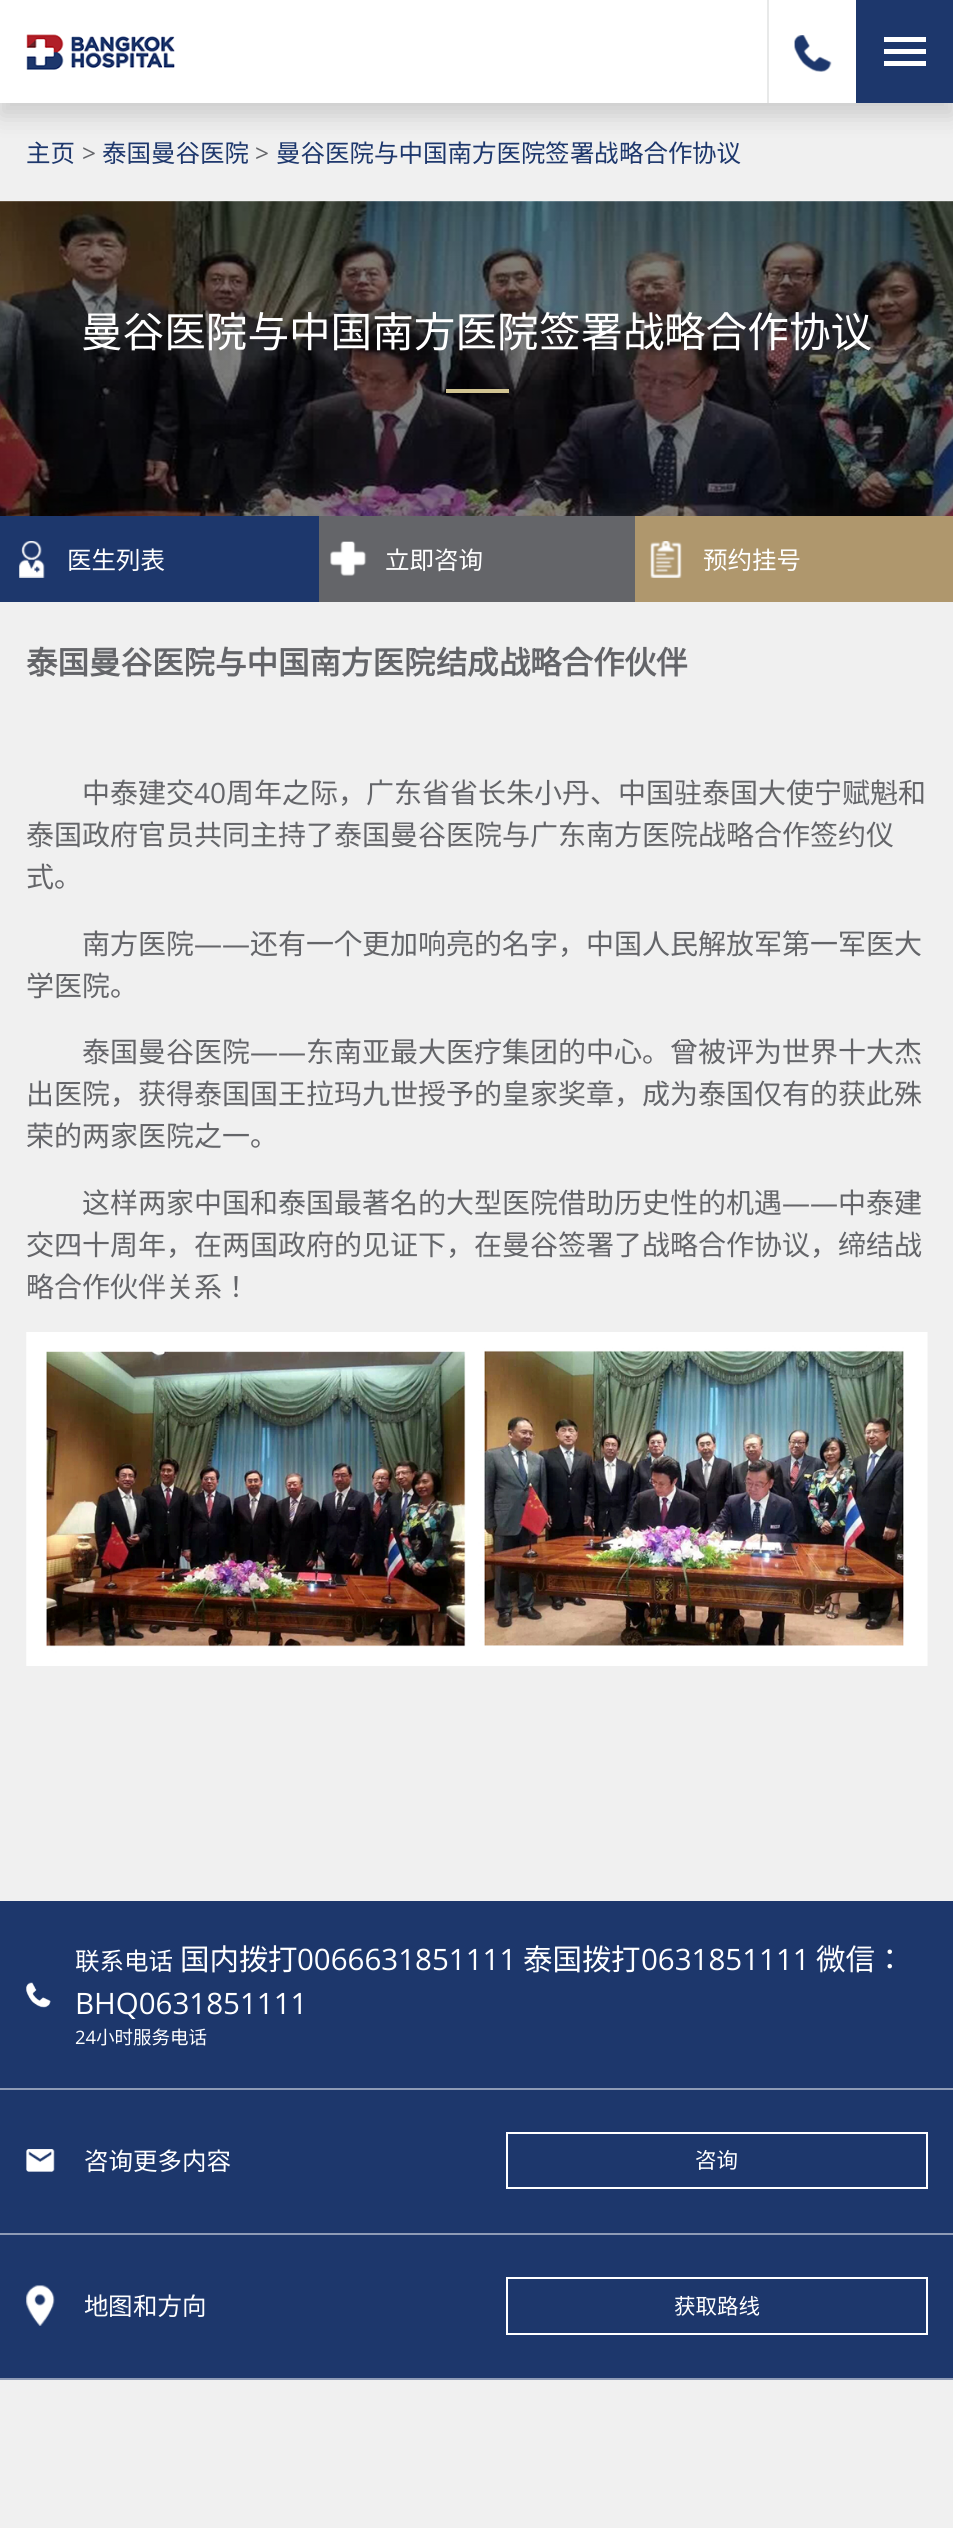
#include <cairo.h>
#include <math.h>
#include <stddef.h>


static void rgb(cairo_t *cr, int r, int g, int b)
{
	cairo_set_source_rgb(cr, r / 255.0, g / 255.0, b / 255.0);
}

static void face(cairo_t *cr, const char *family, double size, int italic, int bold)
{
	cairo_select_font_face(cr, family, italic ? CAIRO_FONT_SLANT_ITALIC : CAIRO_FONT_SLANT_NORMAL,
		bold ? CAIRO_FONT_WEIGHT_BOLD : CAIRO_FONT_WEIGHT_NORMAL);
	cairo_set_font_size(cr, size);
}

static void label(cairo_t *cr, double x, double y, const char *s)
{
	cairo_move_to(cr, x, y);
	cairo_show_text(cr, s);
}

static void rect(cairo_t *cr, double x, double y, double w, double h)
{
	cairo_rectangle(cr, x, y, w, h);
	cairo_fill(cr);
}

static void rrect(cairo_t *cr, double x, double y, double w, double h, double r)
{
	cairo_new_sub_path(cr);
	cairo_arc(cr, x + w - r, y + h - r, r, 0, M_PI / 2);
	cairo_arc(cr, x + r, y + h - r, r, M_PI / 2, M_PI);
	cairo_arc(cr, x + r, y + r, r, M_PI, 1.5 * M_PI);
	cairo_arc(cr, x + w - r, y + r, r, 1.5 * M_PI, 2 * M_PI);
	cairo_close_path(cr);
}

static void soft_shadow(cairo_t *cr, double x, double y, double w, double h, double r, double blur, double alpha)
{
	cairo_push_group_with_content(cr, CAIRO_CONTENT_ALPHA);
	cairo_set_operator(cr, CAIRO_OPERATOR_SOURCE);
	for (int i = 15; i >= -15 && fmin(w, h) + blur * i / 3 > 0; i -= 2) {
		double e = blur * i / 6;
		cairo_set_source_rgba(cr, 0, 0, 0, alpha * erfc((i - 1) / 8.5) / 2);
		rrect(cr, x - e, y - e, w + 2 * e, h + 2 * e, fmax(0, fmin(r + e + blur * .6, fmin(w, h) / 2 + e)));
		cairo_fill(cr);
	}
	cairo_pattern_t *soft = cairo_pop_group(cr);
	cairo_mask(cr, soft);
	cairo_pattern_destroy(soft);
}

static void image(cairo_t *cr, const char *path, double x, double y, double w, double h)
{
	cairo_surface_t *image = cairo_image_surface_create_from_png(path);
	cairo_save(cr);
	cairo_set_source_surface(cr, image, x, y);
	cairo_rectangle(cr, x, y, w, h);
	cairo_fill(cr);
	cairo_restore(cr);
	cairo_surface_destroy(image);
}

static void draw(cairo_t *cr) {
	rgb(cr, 240, 240, 240);
	cairo_paint(cr);
	rgb(cr, 0, 0, 0);
	soft_shadow(cr, 0, 12, 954, 104, 0, 12, 0.15);
	rgb(cr, 255, 255, 255);
	rect(cr, 0, 0, 856, 103);
	image(cr, "image0.png", 26, 34, 149, 36);
	rgb(cr, 232, 233, 233);
	rect(cr, 767, 0, 2, 103);
	image(cr, "image1.png", 794, 35, 38, 37);
	rgb(cr, 29, 55, 108);
	rect(cr, 856, 0, 97, 103);
	rgb(cr, 255, 255, 255);
	rect(cr, 884, 37, 42, 5);
	rect(cr, 884, 49, 42, 5);
	rect(cr, 884, 61, 42, 5);
	face(cr, "Noto Sans JP Thin", 24.5, 0, 0);
	rgb(cr, 29, 55, 108);
	label(cr, 26, 162, "主页");
	face(cr, "Open Sans", 24.5, 0, 0);
	rgb(cr, 100, 101, 105);
	label(cr, 82, 162, ">");
	face(cr, "Noto Sans JP Thin", 24.5, 0, 0);
	rgb(cr, 29, 55, 108);
	label(cr, 102, 162, "泰国曼谷医院");
	face(cr, "Open Sans", 24.5, 0, 0);
	rgb(cr, 100, 101, 105);
	label(cr, 255, 162, ">");
	face(cr, "Noto Sans JP Thin", 24.5, 0, 0);
	rgb(cr, 29, 55, 108);
	label(cr, 276, 162, "曼谷医院与中国南方医院");
	face(cr, "Noto Sans SC Thin", 24.5, 0, 0);
	label(cr, 545, 162, "签");
	face(cr, "Noto Sans JP Thin", 24.5, 0, 0);
	label(cr, 570, 162, "署");
	face(cr, "Noto Sans SC Thin", 24.5, 0, 0);
	label(cr, 594, 162, "战");
	face(cr, "Noto Sans JP Thin", 24.5, 0, 0);
	label(cr, 619, 162, "略合作");
	face(cr, "Noto Sans SC Thin", 24.5, 0, 0);
	label(cr, 692, 162, "协议");
	image(cr, "image2.png", 0, 201, 953, 315);
	face(cr, "Noto Sans JP Thin", 41.6, 0, 0);
	rgb(cr, 255, 255, 255);
	label(cr, 81, 347, "曼谷医院与中国南方医院");
	face(cr, "Noto Sans SC Thin", 41.6, 0, 0);
	label(cr, 539, 347, "签");
	face(cr, "Noto Sans JP Thin", 41.6, 0, 0);
	label(cr, 581, 347, "署");
	face(cr, "Noto Sans SC Thin", 41.6, 0, 0);
	label(cr, 623, 347, "战");
	face(cr, "Noto Sans JP Thin", 41.6, 0, 0);
	label(cr, 664, 347, "略合作");
	face(cr, "Noto Sans SC Thin", 41.6, 0, 0);
	label(cr, 789, 347, "协议");
	rgb(cr, 209, 195, 146);
	rect(cr, 446, 389, 63, 4);
	rgb(cr, 29, 55, 108);
	rect(cr, 0, 516, 319, 86);
	image(cr, "image3.png", 19, 541, 26, 37);
	face(cr, "Noto Sans JP Thin", 24.5, 0, 0);
	rgb(cr, 255, 255, 255);
	label(cr, 67, 569, "医生列表");
	rgb(cr, 100, 101, 105);
	rect(cr, 319, 516, 316, 86);
	image(cr, "image4.png", 330, 541, 37, 35);
	rgb(cr, 255, 255, 255);
	label(cr, 385, 569, "立即");
	face(cr, "Noto Sans SC Thin", 24.5, 0, 0);
	label(cr, 434, 569, "咨询");
	rgb(cr, 175, 151, 109);
	rect(cr, 635, 516, 318, 86);
	image(cr, "image5.png", 650, 541, 32, 37);
	rgb(cr, 255, 255, 255);
	label(cr, 703, 569, "预约挂号");
	face(cr, "Noto Sans JP", 31.5, 0, 1);
	rgb(cr, 100, 101, 105);
	label(cr, 26, 674, "泰国曼谷医院与中国南方医院");
	face(cr, "Noto Sans SC", 31.5, 0, 1);
	label(cr, 436, 674, "结");
	face(cr, "Noto Sans JP", 31.5, 0, 1);
	label(cr, 467, 674, "成");
	face(cr, "Noto Sans SC", 31.5, 0, 1);
	label(cr, 499, 674, "战");
	face(cr, "Noto Sans JP", 31.5, 0, 1);
	label(cr, 530, 674, "略合作伙伴");
	face(cr, "Noto Sans JP Thin", 28, 0, 0);
	label(cr, 82, 803, "中泰建交");
	face(cr, "Open Sans", 28, 0, 0);
	label(cr, 194, 803, "40");
	face(cr, "Noto Sans JP Thin", 28, 0, 0);
	label(cr, 226, 803, "周年之");
	face(cr, "Noto Sans SC Thin", 28, 0, 0);
	label(cr, 310, 803, "际");
	face(cr, "Noto Sans JP Thin", 28, 0, 0);
	label(cr, 338, 803, "，广");
	face(cr, "Noto Sans SC Thin", 28, 0, 0);
	label(cr, 394, 803, "东省省");
	face(cr, "Noto Sans JP Thin", 28, 0, 0);
	label(cr, 478, 803, "长朱小丹、中国");
	face(cr, "Noto Sans SC Thin", 28, 0, 0);
	label(cr, 674, 803, "驻");
	face(cr, "Noto Sans JP Thin", 28, 0, 0);
	label(cr, 702, 803, "泰国大使宁");
	face(cr, "Noto Sans SC Thin", 28, 0, 0);
	label(cr, 842, 803, "赋");
	face(cr, "Noto Sans JP Thin", 28, 0, 0);
	label(cr, 870, 803, "魁和");
	label(cr, 26, 845, "泰国政府官");
	face(cr, "Noto Sans SC Thin", 28, 0, 0);
	label(cr, 166, 845, "员");
	face(cr, "Noto Sans JP Thin", 28, 0, 0);
	label(cr, 194, 845, "共同主持了泰国曼谷医院与广");
	face(cr, "Noto Sans SC Thin", 28, 0, 0);
	label(cr, 558, 845, "东");
	face(cr, "Noto Sans JP Thin", 28, 0, 0);
	label(cr, 586, 845, "南方医院");
	face(cr, "Noto Sans SC Thin", 28, 0, 0);
	label(cr, 698, 845, "战");
	face(cr, "Noto Sans JP Thin", 28, 0, 0);
	label(cr, 726, 845, "略合作");
	face(cr, "Noto Sans SC Thin", 28, 0, 0);
	label(cr, 810, 845, "签约仪");
	face(cr, "Noto Sans JP Thin", 28, 0, 0);
	label(cr, 26, 887, "式。");
	label(cr, 82, 954, "南方医院");
	face(cr, "Open Sans", 28, 0, 0);
	label(cr, 194, 954, "——");
	face(cr, "Noto Sans SC Thin", 28, 0, 0);
	label(cr, 250, 954, "还");
	face(cr, "Noto Sans JP Thin", 28, 0, 0);
	label(cr, 278, 954, "有一个更加");
	face(cr, "Noto Sans SC Thin", 28, 0, 0);
	label(cr, 418, 954, "响");
	face(cr, "Noto Sans JP Thin", 28, 0, 0);
	label(cr, 446, 954, "亮的名字，中国人民解放");
	face(cr, "Noto Sans SC Thin", 28, 0, 0);
	label(cr, 754, 954, "军");
	face(cr, "Noto Sans JP Thin", 28, 0, 0);
	label(cr, 782, 954, "第一");
	face(cr, "Noto Sans SC Thin", 28, 0, 0);
	label(cr, 838, 954, "军");
	face(cr, "Noto Sans JP Thin", 28, 0, 0);
	label(cr, 866, 954, "医大");
	label(cr, 26, 996, "学医院。");
	label(cr, 82, 1062, "泰国曼谷医院");
	face(cr, "Open Sans", 28, 0, 0);
	label(cr, 250, 1062, "——");
	face(cr, "Noto Sans SC Thin", 28, 0, 0);
	label(cr, 306, 1062, "东");
	face(cr, "Noto Sans JP Thin", 28, 0, 0);
	label(cr, 334, 1062, "南");
	face(cr, "Noto Sans SC Thin", 28, 0, 0);
	label(cr, 362, 1062, "亚");
	face(cr, "Noto Sans JP Thin", 28, 0, 0);
	label(cr, 390, 1062, "最大医");
	face(cr, "Noto Sans SC Thin", 28, 0, 0);
	label(cr, 474, 1062, "疗");
	face(cr, "Noto Sans JP Thin", 28, 0, 0);
	label(cr, 502, 1062, "集");
	face(cr, "Noto Sans SC Thin", 28, 0, 0);
	label(cr, 530, 1062, "团");
	face(cr, "Noto Sans JP Thin", 28, 0, 0);
	label(cr, 558, 1062, "的中心。曾被");
	face(cr, "Noto Sans SC Thin", 28, 0, 0);
	label(cr, 726, 1062, "评为");
	face(cr, "Noto Sans JP Thin", 28, 0, 0);
	label(cr, 782, 1062, "世界十大杰");
	label(cr, 26, 1104, "出医院，");
	face(cr, "Noto Sans SC Thin", 28, 0, 0);
	label(cr, 138, 1104, "获");
	face(cr, "Noto Sans JP Thin", 28, 0, 0);
	label(cr, 166, 1104, "得泰国国王");
	face(cr, "Noto Sans SC Thin", 28, 0, 0);
	label(cr, 306, 1104, "拉玛");
	face(cr, "Noto Sans JP Thin", 28, 0, 0);
	label(cr, 362, 1104, "九世授予的皇家");
	face(cr, "Noto Sans SC Thin", 28, 0, 0);
	label(cr, 558, 1104, "奖");
	face(cr, "Noto Sans JP Thin", 28, 0, 0);
	label(cr, 586, 1104, "章，成");
	face(cr, "Noto Sans SC Thin", 28, 0, 0);
	label(cr, 670, 1104, "为");
	face(cr, "Noto Sans JP Thin", 28, 0, 0);
	label(cr, 698, 1104, "泰国");
	face(cr, "Noto Sans SC Thin", 28, 0, 0);
	label(cr, 754, 1104, "仅");
	face(cr, "Noto Sans JP Thin", 28, 0, 0);
	label(cr, 782, 1104, "有的");
	face(cr, "Noto Sans SC Thin", 28, 0, 0);
	label(cr, 838, 1104, "获");
	face(cr, "Noto Sans JP Thin", 28, 0, 0);
	label(cr, 866, 1104, "此殊");
	label(cr, 26, 1146, "荣的两家医院之一。");
	face(cr, "Noto Sans SC Thin", 28, 0, 0);
	label(cr, 82, 1213, "这样");
	face(cr, "Noto Sans JP Thin", 28, 0, 0);
	label(cr, 138, 1213, "两家中国和泰国最著名的大型医院借助");
	face(cr, "Noto Sans SC Thin", 28, 0, 0);
	label(cr, 614, 1213, "历史");
	face(cr, "Noto Sans JP Thin", 28, 0, 0);
	label(cr, 670, 1213, "性的机遇");
	face(cr, "Open Sans", 28, 0, 0);
	label(cr, 782, 1213, "——");
	face(cr, "Noto Sans JP Thin", 28, 0, 0);
	label(cr, 838, 1213, "中泰建");
	label(cr, 26, 1255, "交四十周年，在两国政府的见");
	face(cr, "Noto Sans SC Thin", 28, 0, 0);
	label(cr, 390, 1255, "证");
	face(cr, "Noto Sans JP Thin", 28, 0, 0);
	label(cr, 418, 1255, "下，在曼谷");
	face(cr, "Noto Sans SC Thin", 28, 0, 0);
	label(cr, 558, 1255, "签");
	face(cr, "Noto Sans JP Thin", 28, 0, 0);
	label(cr, 586, 1255, "署了");
	face(cr, "Noto Sans SC Thin", 28, 0, 0);
	label(cr, 642, 1255, "战");
	face(cr, "Noto Sans JP Thin", 28, 0, 0);
	label(cr, 670, 1255, "略合作");
	face(cr, "Noto Sans SC Thin", 28, 0, 0);
	label(cr, 754, 1255, "协议");
	face(cr, "Noto Sans JP Thin", 28, 0, 0);
	label(cr, 810, 1255, "，");
	face(cr, "Noto Sans SC Thin", 28, 0, 0);
	label(cr, 838, 1255, "缔结战");
	face(cr, "Noto Sans JP Thin", 28, 0, 0);
	label(cr, 26, 1297, "略合作伙伴关系！");
	image(cr, "image6.png", 26, 1332, 902, 334);
	rgb(cr, 29, 55, 108);
	rect(cr, 0, 1901, 953, 477);
	rgb(cr, 142, 155, 182);
	rect(cr, 0, 2088, 953, 2);
	image(cr, "image7.png", 26, 1982, 25, 26);
	face(cr, "Noto Sans SC Thin", 24.5, 0, 0);
	rgb(cr, 255, 255, 255);
	label(cr, 75, 1970, "联系电话");
	face(cr, "Noto Sans JP Thin", 29.5, 0, 0);
	label(cr, 180, 1970, "国内");
	face(cr, "Noto Sans SC Thin", 29.5, 0, 0);
	label(cr, 239, 1970, "拨");
	face(cr, "Noto Sans JP Thin", 29.5, 0, 0);
	label(cr, 268, 1970, "打");
	face(cr, "Open Sans", 29.5, 0, 0);
	label(cr, 297, 1970, "0066631851111");
	face(cr, "Noto Sans JP Thin", 29.5, 0, 0);
	label(cr, 523, 1970, "泰国");
	face(cr, "Noto Sans SC Thin", 29.5, 0, 0);
	label(cr, 582, 1970, "拨");
	face(cr, "Noto Sans JP Thin", 29.5, 0, 0);
	label(cr, 611, 1970, "打");
	face(cr, "Open Sans", 29.5, 0, 0);
	label(cr, 641, 1970, "0631851111");
	face(cr, "Noto Sans JP Thin", 29.5, 0, 0);
	label(cr, 816, 1970, "微信：");
	face(cr, "Open Sans", 29.5, 0, 0);
	label(cr, 75, 2014, "BHQ0631851111");
	face(cr, "Open Sans", 18.5, 0, 0);
	label(cr, 75, 2044, "24");
	face(cr, "Noto Sans SC Thin", 18.5, 0, 0);
	label(cr, 96, 2044, "小时服务电话");
	rgb(cr, 142, 155, 182);
	rect(cr, 0, 2233, 953, 2);
	image(cr, "image8.png", 26, 2149, 29, 23);
	face(cr, "Noto Sans SC Thin", 24.5, 0, 0);
	rgb(cr, 255, 255, 255);
	label(cr, 84, 2170, "咨询");
	face(cr, "Noto Sans JP Thin", 24.5, 0, 0);
	label(cr, 133, 2170, "更多内容");
	cairo_rectangle(cr, 507, 2133, 420, 55);
	cairo_stroke(cr);
	face(cr, "Noto Sans SC Thin", 21.5, 0, 0);
	label(cr, 695, 2168, "咨询");
	rgb(cr, 142, 155, 182);
	rect(cr, 0, 2378, 953, 2);
	image(cr, "image9.png", 26, 2285, 29, 41);
	face(cr, "Noto Sans JP Thin", 24.5, 0, 0);
	rgb(cr, 255, 255, 255);
	label(cr, 84, 2315, "地");
	face(cr, "Noto Sans SC Thin", 24.5, 0, 0);
	label(cr, 108, 2315, "图");
	face(cr, "Noto Sans JP Thin", 24.5, 0, 0);
	label(cr, 133, 2315, "和方向");
	cairo_rectangle(cr, 507, 2278, 420, 56);
	cairo_stroke(cr);
	face(cr, "Noto Sans SC Thin", 21.5, 0, 0);
	label(cr, 674, 2314, "获取路线");
}

int main(void) {
	cairo_surface_t *surface = cairo_image_surface_create(CAIRO_FORMAT_RGB24, 953, 2528);
	cairo_t *cr = cairo_create(surface);
	cairo_font_options_t *options = cairo_font_options_create();
	cairo_font_options_set_hint_metrics(options, CAIRO_HINT_METRICS_OFF);
	cairo_font_options_set_hint_style(options, CAIRO_HINT_STYLE_NONE);
	cairo_set_font_options(cr, options);
	cairo_set_miter_limit(cr, 4);
	draw(cr);
	cairo_surface_write_to_png(surface, "render.png");
	cairo_font_options_destroy(options);
	cairo_destroy(cr);
	cairo_surface_destroy(surface);
	return 0;
}
